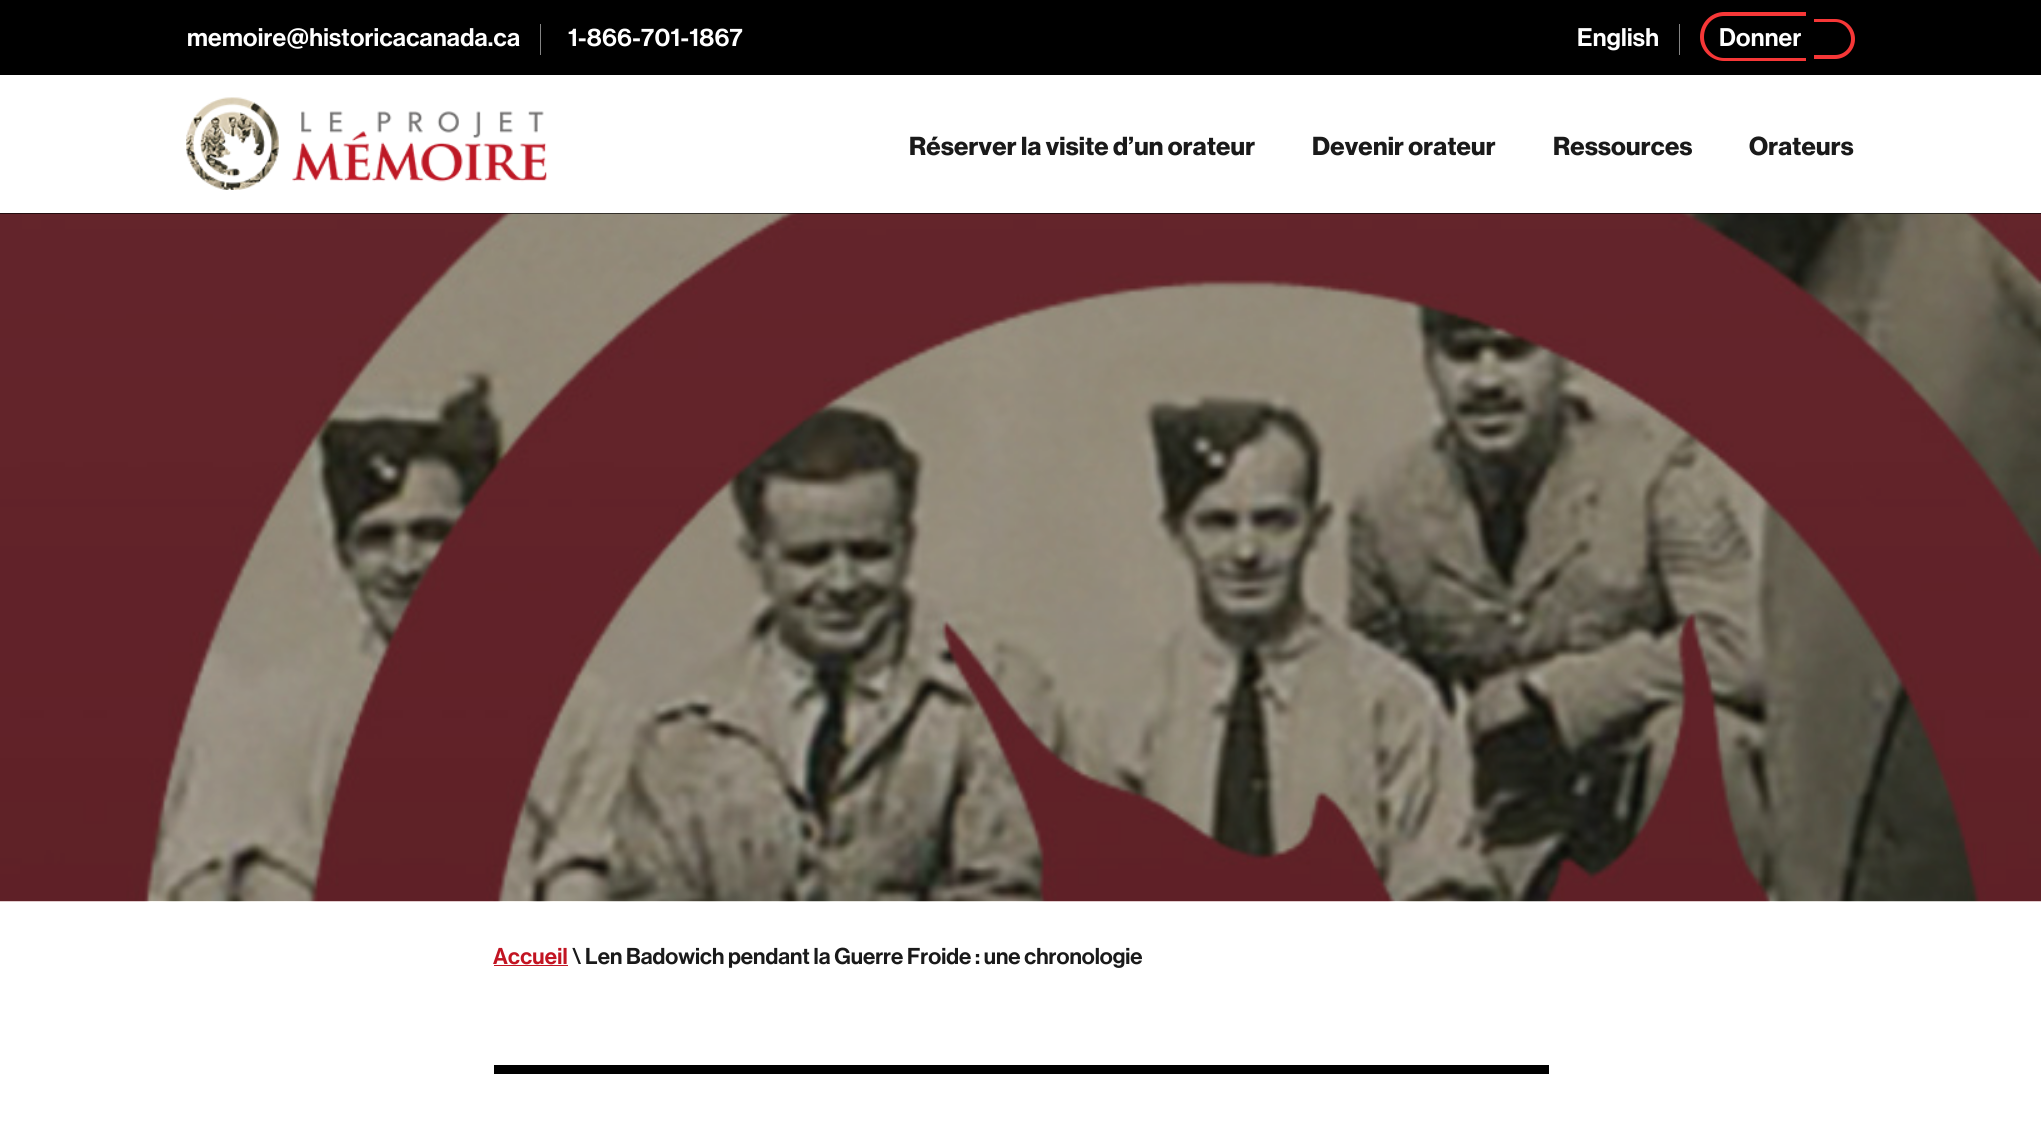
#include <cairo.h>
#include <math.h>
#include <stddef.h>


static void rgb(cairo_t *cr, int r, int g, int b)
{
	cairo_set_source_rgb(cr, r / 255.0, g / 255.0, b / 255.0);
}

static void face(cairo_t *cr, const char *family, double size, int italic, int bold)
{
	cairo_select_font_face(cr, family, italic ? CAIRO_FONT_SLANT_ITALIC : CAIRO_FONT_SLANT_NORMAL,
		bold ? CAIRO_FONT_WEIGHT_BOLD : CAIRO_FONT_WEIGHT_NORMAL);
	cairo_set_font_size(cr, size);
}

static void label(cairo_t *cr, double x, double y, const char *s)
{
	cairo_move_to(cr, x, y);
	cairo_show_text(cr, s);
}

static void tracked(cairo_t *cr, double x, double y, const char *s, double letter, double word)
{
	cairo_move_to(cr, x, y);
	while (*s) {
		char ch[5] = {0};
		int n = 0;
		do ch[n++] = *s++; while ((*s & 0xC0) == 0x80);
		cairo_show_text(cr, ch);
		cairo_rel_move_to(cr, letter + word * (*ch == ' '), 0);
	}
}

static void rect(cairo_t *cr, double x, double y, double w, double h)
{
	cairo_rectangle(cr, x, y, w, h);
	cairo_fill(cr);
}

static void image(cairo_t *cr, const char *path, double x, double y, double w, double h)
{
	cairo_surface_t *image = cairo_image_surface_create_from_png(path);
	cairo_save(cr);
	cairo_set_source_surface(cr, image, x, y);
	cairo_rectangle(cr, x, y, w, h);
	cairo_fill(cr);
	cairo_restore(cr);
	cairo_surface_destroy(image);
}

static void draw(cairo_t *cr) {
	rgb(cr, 255, 255, 255);
	cairo_paint(cr);
	rgb(cr, 0, 0, 0);
	rect(cr, 0, 213, 2041, 1);
	rect(cr, 0, 0, 2041, 75);
	face(cr, "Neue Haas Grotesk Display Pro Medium", 25, 0, 0);
	rgb(cr, 255, 255, 255);
	tracked(cr, 187, 46, "memoire@historicacanada.ca", 0.25, 0);
	rgb(cr, 132, 132, 132);
	rect(cr, 540, 24, 1, 31);
	rgb(cr, 255, 255, 255);
	tracked(cr, 568, 46, "1-866-701-1867", 0.25, 0);
	tracked(cr, 1577, 46, "English", 0.25, 0);
	rgb(cr, 132, 132, 132);
	rect(cr, 1679, 24, 1, 31);
	rgb(cr, 246, 55, 55);
	cairo_set_fill_rule(cr, CAIRO_FILL_RULE_EVEN_ODD);
	cairo_new_path(cr);
	cairo_move_to(cr, 1724, 12);
	cairo_line_to(cr, 1806, 12);
	cairo_line_to(cr, 1806, 61);
	cairo_line_to(cr, 1724, 61);
	cairo_curve_to(cr, 1711, 61, 1700, 50, 1700, 37);
	cairo_curve_to(cr, 1700, 23, 1711, 12, 1724, 12);
	cairo_close_path(cr);
	cairo_move_to(cr, 1724, 16);
	cairo_line_to(cr, 1806, 16);
	cairo_line_to(cr, 1806, 58);
	cairo_line_to(cr, 1724, 58);
	cairo_curve_to(cr, 1713, 58, 1704, 48, 1704, 37);
	cairo_curve_to(cr, 1704, 25, 1713, 16, 1724, 16);
	cairo_close_path(cr);
	cairo_fill(cr);
	rgb(cr, 255, 255, 255);
	tracked(cr, 1719, 46, "Donner", 0.25, 0);
	rgb(cr, 246, 55, 55);
	cairo_new_path(cr);
	cairo_move_to(cr, 1814, 19);
	cairo_line_to(cr, 1835, 19);
	cairo_curve_to(cr, 1846, 19, 1855, 28, 1855, 39);
	cairo_curve_to(cr, 1855, 50, 1846, 59, 1835, 59);
	cairo_line_to(cr, 1814, 59);
	cairo_close_path(cr);
	cairo_move_to(cr, 1814, 22);
	cairo_line_to(cr, 1835, 22);
	cairo_curve_to(cr, 1844, 22, 1851, 30, 1851, 39);
	cairo_curve_to(cr, 1851, 48, 1844, 55, 1835, 55);
	cairo_line_to(cr, 1814, 55);
	cairo_close_path(cr);
	cairo_fill(cr);
	image(cr, "image0.png", 186, 97, 361, 93);
	face(cr, "Neue Haas Grotesk Display Pro", 25.5, 0, 1);
	rgb(cr, 26, 26, 26);
	tracked(cr, 909, 155, "Réserver la visite d’un orateur", 0.25, 0);
	tracked(cr, 1312, 155, "Devenir orateur", 0.25, 0);
	tracked(cr, 1553, 155, "Ressources", 0.25, 0);
	tracked(cr, 1749, 155, "Orateurs", 0.25, 0);
	image(cr, "image1.png", 0, 213, 2041, 689);
	face(cr, "Neue Haas Grotesk Display Pro Medium", 22.5, 0, 0);
	rgb(cr, 194, 20, 34);
	tracked(cr, 493, 964, "Accueil", 0.25, 0);
	rect(cr, 494, 965, 74, 1);
	rgb(cr, 26, 26, 26);
	label(cr, 572, 964, "\\ Len Badowich pendant la Guerre Froide : une chronologie");
	rgb(cr, 0, 0, 0);
	rect(cr, 494, 1065, 1055, 9);
}

int main(void) {
	cairo_surface_t *surface = cairo_image_surface_create(CAIRO_FORMAT_RGB24, 2041, 1122);
	cairo_t *cr = cairo_create(surface);
	cairo_font_options_t *options = cairo_font_options_create();
	cairo_font_options_set_hint_metrics(options, CAIRO_HINT_METRICS_OFF);
	cairo_font_options_set_hint_style(options, CAIRO_HINT_STYLE_NONE);
	cairo_set_font_options(cr, options);
	cairo_set_miter_limit(cr, 4);
	draw(cr);
	cairo_surface_write_to_png(surface, "render.png");
	cairo_font_options_destroy(options);
	cairo_destroy(cr);
	cairo_surface_destroy(surface);
	return 0;
}
